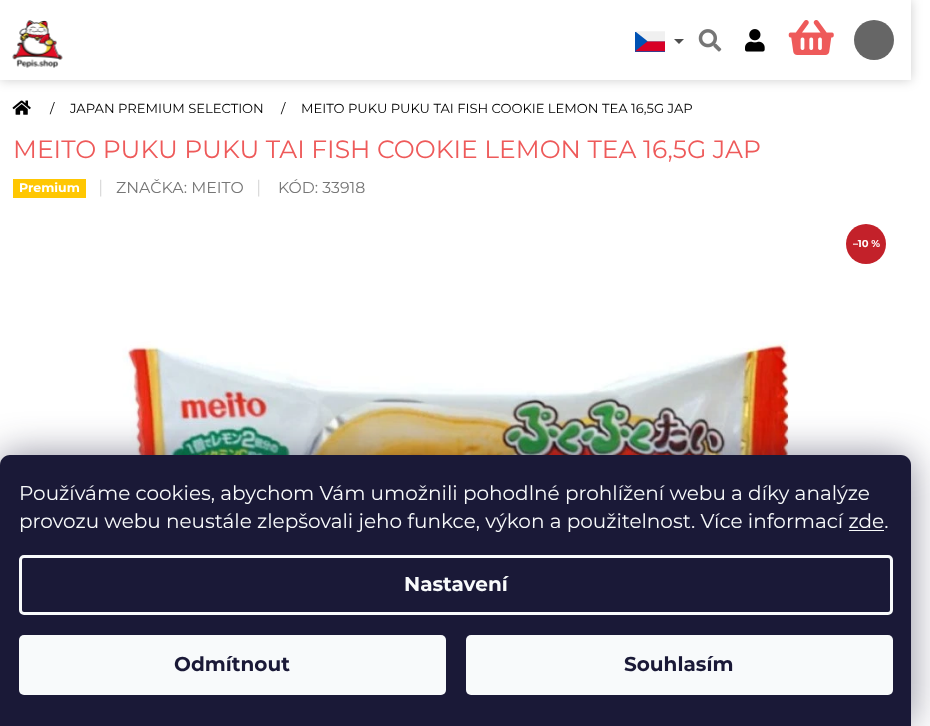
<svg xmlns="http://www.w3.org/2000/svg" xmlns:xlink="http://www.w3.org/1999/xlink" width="930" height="726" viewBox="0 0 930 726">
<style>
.cls-1{font:13.1px Montserrat;fill:#000000}
.cls-2{font:25px Montserrat;fill:#ee5a5a}
.cls-3{font:bold 12.5px Montserrat;fill:#ffffff}
.cls-4{font:18px Montserrat;fill:#dadada}
.cls-5{font:15.75px Montserrat;fill:#767676}
.cls-6{font:bold 10px Montserrat;fill:#ffffff}
.cls-7{font:20px Montserrat;fill:#f8fafb}
.cls-8{font:bold 20px Montserrat;fill:#f8fafb}
.cls-9{font:bold 20px Montserrat;fill:#1a1937}
</style>
<defs>
<clipPath id="clip1"><path d="M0 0H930V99H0ZM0 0H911V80H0Z" clip-rule="evenodd"/></clipPath>
</defs>
<rect width="100%" height="100%" fill="#ffffff"/>
<g clip-path="url(#clip1)">
<rect fill="#000000" fill-opacity="0.2" filter="blur(6px)" x="0" y="0" width="911" height="80"/>
</g>
<image xlink:href="image0.png" x="635" y="31" width="30" height="21"/>
<path fill="#4d4d4d" d="M674 39H684L679 44Z"/>
<image xlink:href="image1.png" x="698" y="29" width="24" height="23"/>
<image xlink:href="image2.png" x="745" y="29" width="20" height="23"/>
<circle fill="#666666" cx="874" cy="40" r="20"/>
<image xlink:href="image3.png" x="12" y="20" width="51" height="48"/>
<image xlink:href="image4.png" x="788" y="20" width="46" height="35"/>
<image xlink:href="image5.png" x="12" y="100" width="19" height="15"/>
<rect fill="#ffc702" x="13" y="179" width="73" height="19"/>
<circle fill="#c3212a" cx="866" cy="244" r="20"/>
<image xlink:href="image6.png" x="122" y="340" width="667" height="115"/>
<rect fill="#1b1939" fill-opacity="0.5" filter="blur(19px)" x="0" y="455" width="911" height="271" rx="10"/>
<path fill="#1a1937" d="M10 455H901C906.5 455 911 459.5 911 465V726H0V465C0 459.5 4.5 455 10 455Z"/>
<rect fill="#f8fafb" x="849" y="530" width="35" height="1"/>
<rect fill="none" stroke="#f8fafb" stroke-width="3" x="20.5" y="556.5" width="871" height="57" rx="3.5"/>
<rect fill="#f8fafb" x="19" y="635" width="427" height="60" rx="5"/>
<rect fill="#f8fafb" x="466" y="635" width="427" height="60" rx="5"/>
<text class="cls-1" x="50" y="113">/</text>
<text class="cls-1" x="70" y="113">JAPAN PREMIUM SELECTION</text>
<text class="cls-1" x="281" y="113">/</text>
<text class="cls-1" x="301" y="113">MEITO PUKU PUKU TAI FISH COOKIE LEMON TEA 16,5G JAP</text>
<text class="cls-2" x="13" y="158">MEITO PUKU PUKU TAI FISH COOKIE LEMON TEA 16,5G JAP</text>
<text class="cls-3" x="19" y="192">Premium</text>
<text class="cls-4" x="98" y="193">|</text>
<text class="cls-5" x="116" y="193">ZNAČKA: MEITO</text>
<text class="cls-4" x="256" y="193">|</text>
<text class="cls-5" x="278" y="193">KÓD: 33918</text>
<text class="cls-6" x="853" y="247">–10 %</text>
<text class="cls-7"><tspan x="19" y="500">Používáme cookies, abychom Vám umožnili pohodlné prohlížení webu a díky analýze</tspan><tspan x="19" y="528">provozu webu neustále zlepšovali jeho funkce, výkon a použitelnost. Více informací zde.</tspan></text>
<text class="cls-8" x="404" y="591">Nastavení</text>
<text class="cls-9" x="174" y="671">Odmítnout</text>
<text class="cls-9" x="624" y="671">Souhlasím</text>
</svg>
